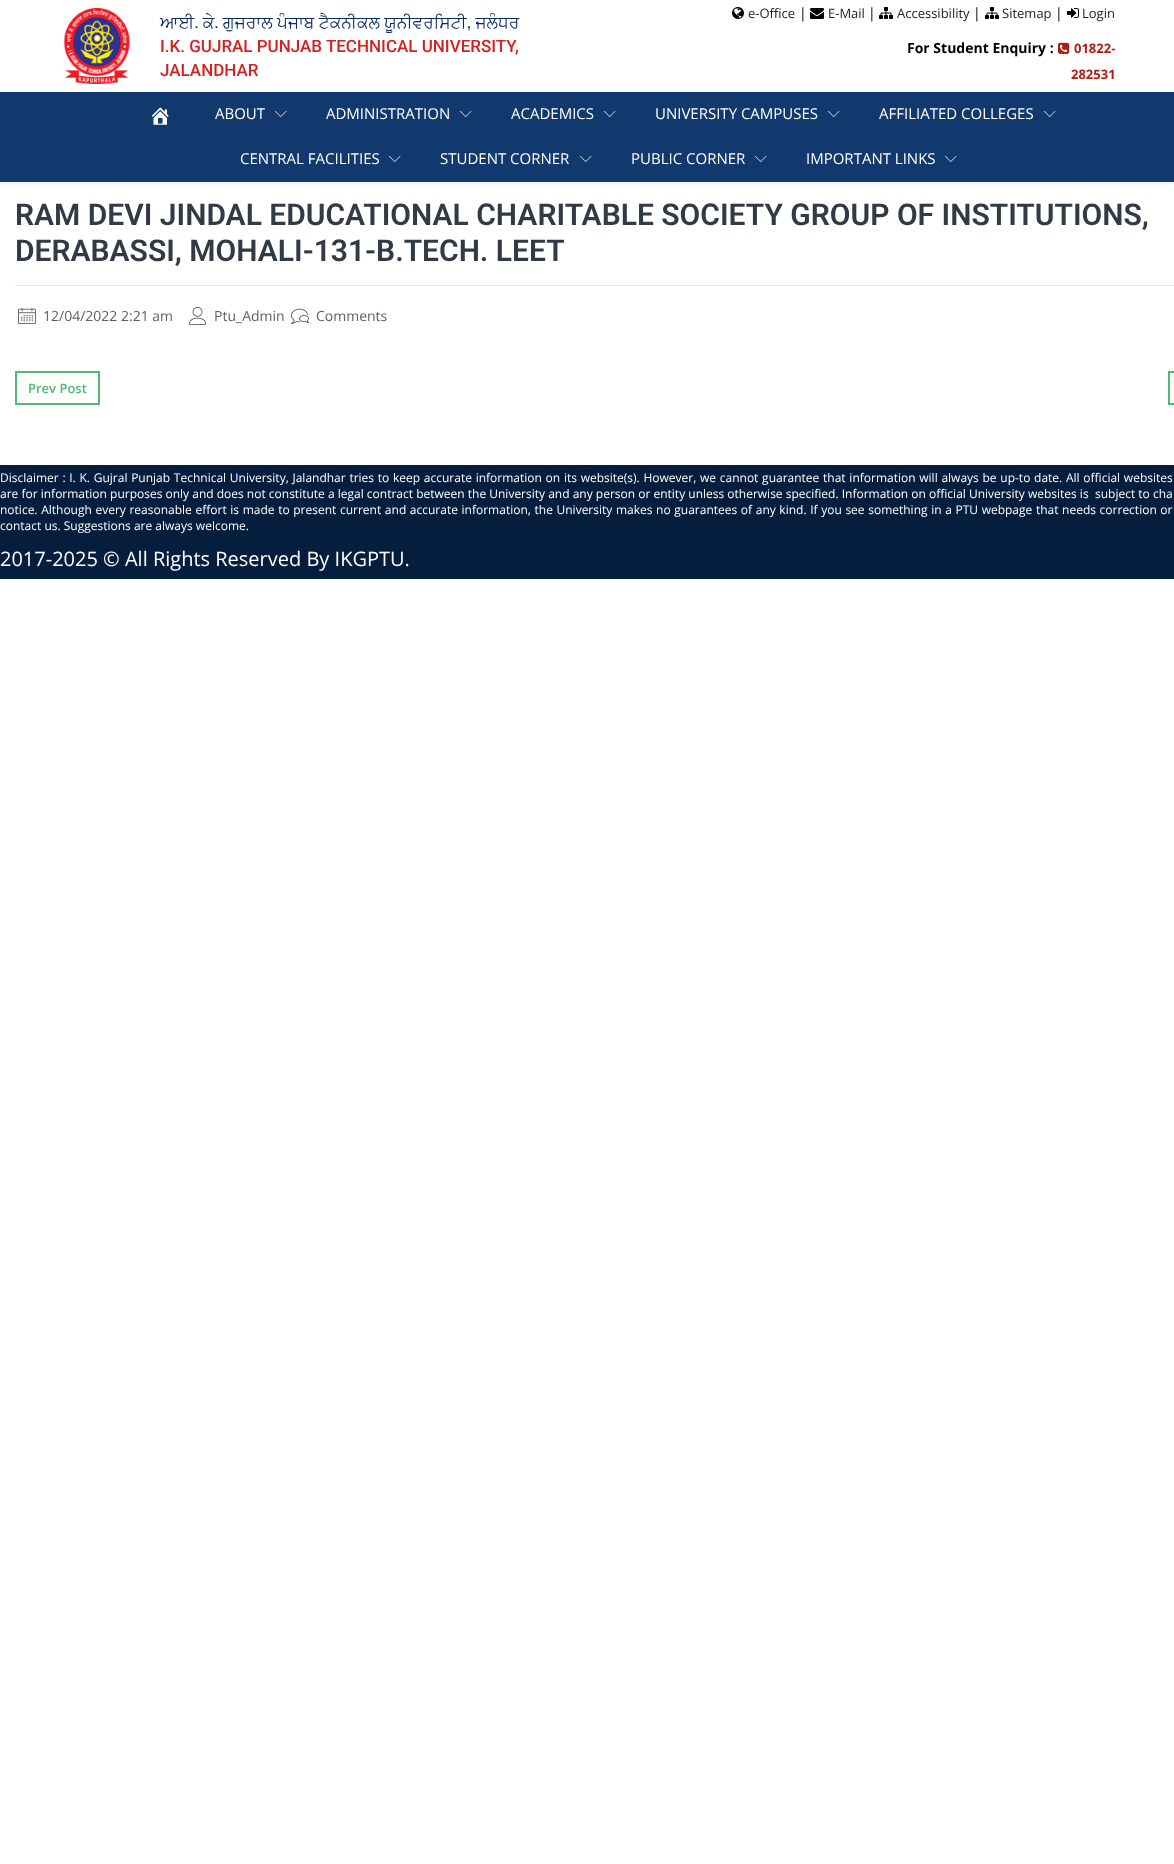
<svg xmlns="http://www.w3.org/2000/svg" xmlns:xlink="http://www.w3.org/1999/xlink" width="1174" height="1864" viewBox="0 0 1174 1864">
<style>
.cls-1{font:17px FreeSans;fill:#0b2a5e}
.cls-2{font:500 17px Roboto;fill:#d42020}
.cls-3{font:13px Open Sans;fill:#222222}
.cls-4{font:14px Open Sans;fill:#000000}
.cls-5{font:bold 14px Open Sans;fill:#000000}
.cls-6{font:bold 13px Open Sans;fill:#ac1d16}
.cls-7{font:15px Open Sans;fill:#ffffff}
.cls-8{font:600 30px Roboto;fill:#323a45}
.cls-9{font:14px Open Sans;fill:#606060}
.cls-10{font:600 13px Open Sans;fill:#53b778}
.cls-11{font:12px Open Sans;fill:#ffffff}
.cls-12{font:20px Open Sans;fill:#ffffff}
</style>
<defs>
<clipPath id="clip1"><rect x="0" y="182" width="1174" height="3"/></clipPath>
</defs>
<rect width="100%" height="100%" fill="#ffffff"/>
<g clip-path="url(#clip1)">
<rect fill="#000000" fill-opacity="0.12" filter="blur(3.5px)" x="0" y="0" width="1174" height="182"/>
</g>
<image xlink:href="image0.png" x="63" y="8" width="67" height="76"/>
<image xlink:href="image1.png" x="732" y="7" width="12" height="12"/>
<image xlink:href="image2.png" x="810" y="8" width="14" height="11"/>
<image xlink:href="image3.png" x="879" y="7" width="14" height="12"/>
<image xlink:href="image3.png" x="985" y="7" width="14" height="12"/>
<image xlink:href="image4.png" x="1067" y="8" width="12" height="10"/>
<image xlink:href="image5.png" x="1058" y="42" width="12" height="12"/>
<rect fill="#12396d" x="0" y="92" width="1174" height="90"/>
<image xlink:href="image6.png" x="151" y="107" width="18" height="18"/>
<image xlink:href="image7.png" x="275" y="110" width="12" height="7"/>
<image xlink:href="image7.png" x="460" y="110" width="12" height="7"/>
<image xlink:href="image7.png" x="604" y="110" width="12" height="7"/>
<image xlink:href="image7.png" x="828" y="110" width="12" height="7"/>
<image xlink:href="image7.png" x="1044" y="110" width="12" height="7"/>
<image xlink:href="image7.png" x="389" y="155" width="12" height="7"/>
<image xlink:href="image7.png" x="580" y="155" width="12" height="7"/>
<image xlink:href="image7.png" x="755" y="155" width="12" height="7"/>
<image xlink:href="image7.png" x="945" y="155" width="12" height="7"/>
<rect fill="#e9e9e9" x="15" y="285" width="1159" height="1"/>
<image xlink:href="image8.png" x="18" y="307" width="18" height="17"/>
<image xlink:href="image9.png" x="189" y="306" width="18" height="19"/>
<image xlink:href="image10.png" x="291" y="308" width="18" height="16"/>
<rect fill="none" stroke="#53b778" stroke-width="2" x="16" y="372" width="83" height="32"/>
<rect fill="none" stroke="#53b778" stroke-width="2" x="1169" y="372" width="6" height="32"/>
<rect fill="#061e3e" x="0" y="465" width="1174" height="114"/>
<text class="cls-1" x="160" y="28">ਆਈ. ਕੇ. ਗੁਜਰਾਲ ਪੰਜਾਬ ਟੈਕਨੀਕਲ ਯੂਨੀਵਰਸਿਟੀ, ਜਲੰਧਰ</text>
<text class="cls-2"><tspan x="160" y="52">I.K. GUJRAL PUNJAB TECHNICAL UNIVERSITY,</tspan><tspan x="160" y="76">JALANDHAR</tspan></text>
<text class="cls-3" x="748" y="18">e-Office</text>
<text class="cls-4" x="799" y="18">|</text>
<text class="cls-3" x="828" y="18">E-Mail</text>
<text class="cls-4" x="868" y="18">|</text>
<text class="cls-3" x="897" y="18">Accessibility</text>
<text class="cls-4" x="973" y="18">|</text>
<text class="cls-3" x="1002" y="18">Sitemap</text>
<text class="cls-4" x="1055" y="18">|</text>
<text class="cls-3" x="1082" y="18">Login</text>
<text class="cls-5" x="907" y="53">For Student Enquiry :</text>
<text class="cls-6" x="1074" y="53">01822-</text>
<text class="cls-6" x="1071" y="79">282531</text>
<text class="cls-7" x="215" y="119">ABOUT</text>
<text class="cls-7" x="326" y="119">ADMINISTRATION</text>
<text class="cls-7" x="511" y="119">ACADEMICS</text>
<text class="cls-7" x="655" y="119">UNIVERSITY CAMPUSES</text>
<text class="cls-7" x="879" y="119">AFFILIATED COLLEGES</text>
<text class="cls-7" x="240" y="164">CENTRAL FACILITIES</text>
<text class="cls-7" x="440" y="164">STUDENT CORNER</text>
<text class="cls-7" x="631" y="164">PUBLIC CORNER</text>
<text class="cls-7" x="806" y="164">IMPORTANT LINKS</text>
<text class="cls-8"><tspan x="15" y="225">RAM DEVI JINDAL EDUCATIONAL CHARITABLE SOCIETY GROUP OF INSTITUTIONS,</tspan><tspan x="15" y="261">DERABASSI, MOHALI-131-B.TECH. LEET</tspan></text>
<text class="cls-9" x="43" y="321">12/04/2022 2:21 am</text>
<text class="cls-9" x="214" y="321">Ptu_Admin</text>
<text class="cls-9" x="316" y="321">Comments</text>
<text class="cls-10" x="28" y="393">Prev Post</text>
<text class="cls-11"><tspan x="0" y="482" word-spacing="0.6">Disclaimer : I. K. Gujral Punjab Technical University, Jalandhar tries to keep accurate information on its website(s). However, we cannot guarantee that information will always be up-to date. All official websites</tspan><tspan x="0" y="498">are for information purposes only and does not constitute a legal contract between the University and any person or entity unless otherwise specified. Information on official University websites is</tspan></text>
<text class="cls-11" x="1095" y="498">subject to cha</text>
<text class="cls-11"><tspan x="0" y="514" word-spacing="0.5">notice. Although every reasonable effort is made to present current and accurate information, the University makes no guarantees of any kind. If you see something in a PTU webpage that needs correction or</tspan><tspan x="0" y="530">contact us. Suggestions are always welcome.</tspan></text>
<text class="cls-12" x="0" y="566">2017-2025 © All Rights Reserved By IKGPTU.</text>
</svg>
